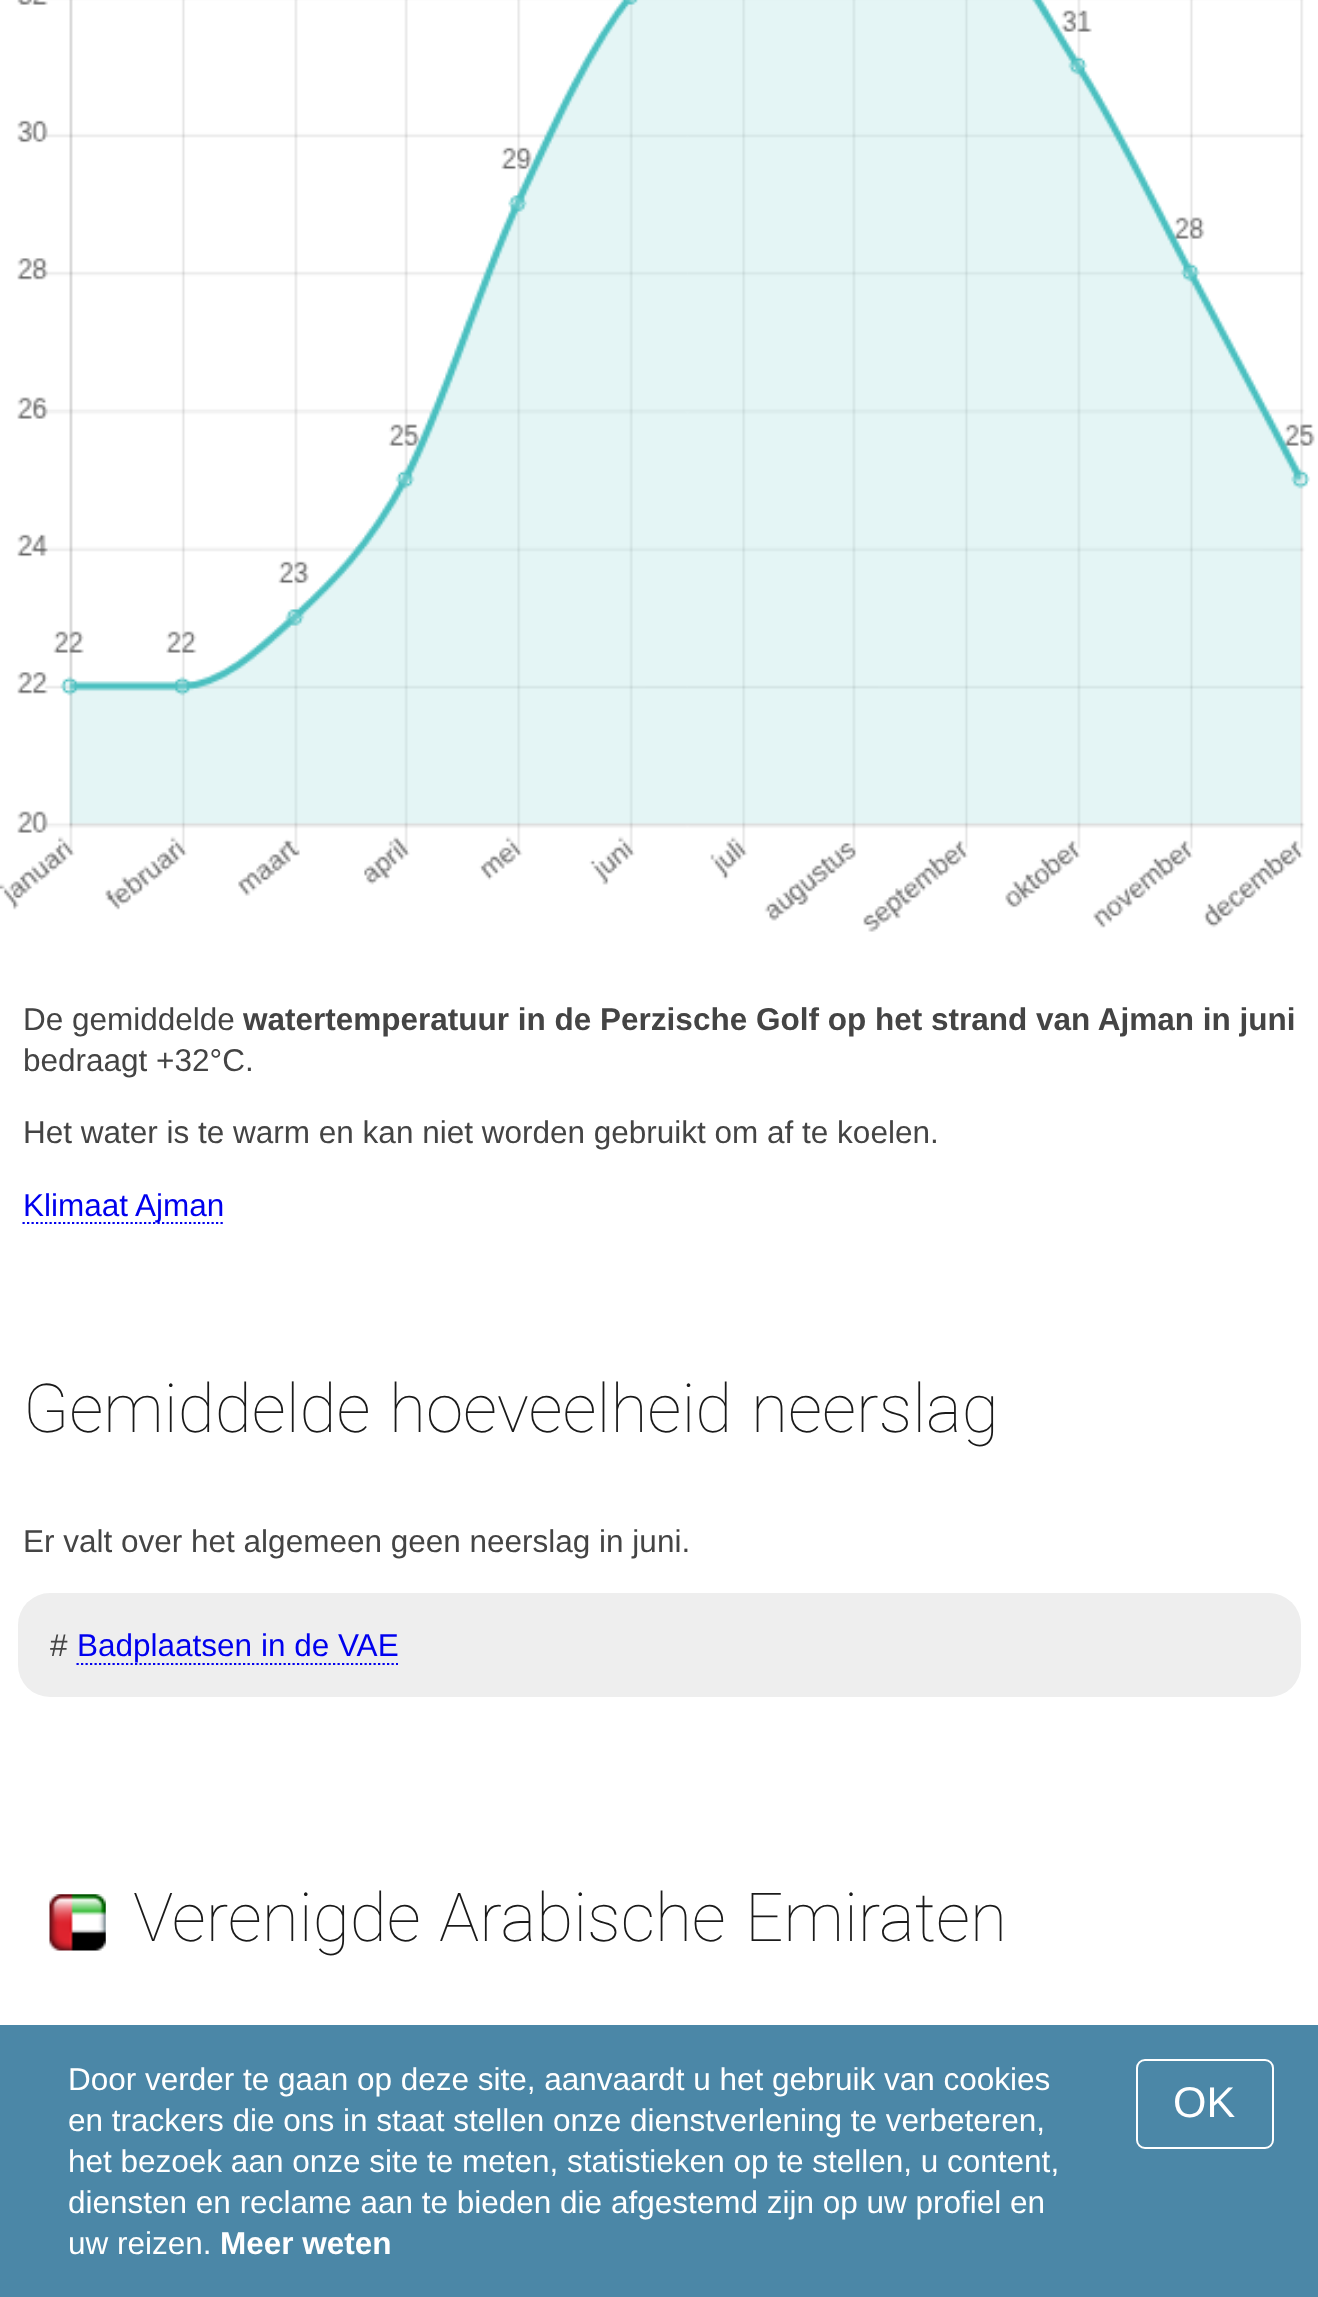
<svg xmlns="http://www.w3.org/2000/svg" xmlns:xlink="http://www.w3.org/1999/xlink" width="1318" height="2297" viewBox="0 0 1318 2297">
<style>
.cls-1{font:31.5px Liberation Sans;fill:#444444}
.cls-2{font:bold 31.5px Liberation Sans;fill:#444444}
.cls-3{font:31.5px Liberation Sans;fill:#0000ee}
.cls-4{font:100 67.5px Roboto;fill:#1a1a1a}
.cls-5{font:31.5px Liberation Sans;fill:#ffffff}
.cls-6{font:bold 31.5px Liberation Sans;fill:#ffffff}
.cls-7{font:43px Liberation Sans;fill:#ffffff}
</style>
<rect width="100%" height="100%" fill="#ffffff"/>
<image xlink:href="image0.png" x="0" y="0" width="1315" height="932"/>
<path fill="none" stroke="#0000ee" stroke-width="2.2" stroke-dasharray="2.25 2.25" d="M22.5 1223H223"/>
<rect fill="#eeeeee" x="18" y="1593" width="1283" height="104" rx="32"/>
<path fill="none" stroke="#0000ee" stroke-width="2.2" stroke-dasharray="2.25 2.25" d="M76.5 1664H398"/>
<image xlink:href="image1.png" x="49" y="1894" width="57" height="57"/>
<rect fill="#4b87a7" x="0" y="2025" width="1318" height="272"/>
<rect fill="none" stroke="#ffffff" stroke-width="2" x="1137" y="2060" width="136" height="88" rx="8"/>
<text class="cls-1" x="23" y="1030">De gemiddelde</text>
<text class="cls-2" x="243" y="1030">watertemperatuur in de Perzische Golf op het strand van Ajman in juni</text>
<text class="cls-1" x="23" y="1071">bedraagt +32°C.</text>
<text class="cls-1" x="23" y="1143">Het water is te warm en kan niet worden gebruikt om af te koelen.</text>
<text class="cls-3" x="23" y="1216">Klimaat Ajman</text>
<text class="cls-4" x="23" y="1432">Gemiddelde</text>
<text class="cls-4" x="389" y="1432">hoeveelheid</text>
<text class="cls-4" x="751" y="1432">neerslag</text>
<text class="cls-1" x="23" y="1552">Er valt over het algemeen geen neerslag in juni.</text>
<text class="cls-1" x="50" y="1656">#</text>
<text class="cls-3" x="77" y="1656">Badplaatsen in de VAE</text>
<text class="cls-4" x="133" y="1941">Verenigde</text>
<text class="cls-4" x="439" y="1941">Arabische</text>
<text class="cls-4" x="745" y="1941">Emiraten</text>
<text class="cls-5"><tspan x="68" y="2090">Door verder te gaan op deze site, aanvaardt u het gebruik van cookies</tspan><tspan x="68" y="2131">en trackers die ons in staat stellen onze dienstverlening te verbeteren,</tspan><tspan x="68" y="2172">het bezoek aan onze site te meten, statistieken op te stellen, u content,</tspan><tspan x="68" y="2213">diensten en reclame aan te bieden die afgestemd zijn op uw profiel en</tspan><tspan x="68" y="2254">uw reizen.</tspan></text>
<text class="cls-6" x="220" y="2254">Meer weten</text>
<text class="cls-7" x="1173" y="2117">OK</text>
</svg>
